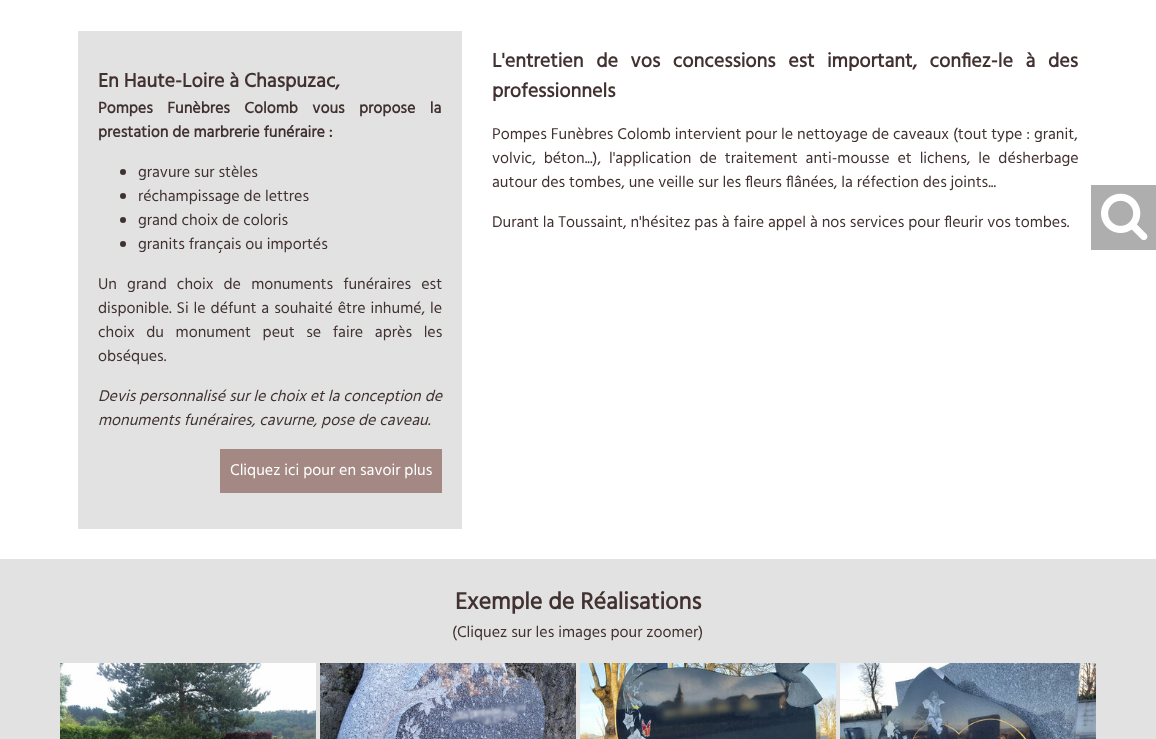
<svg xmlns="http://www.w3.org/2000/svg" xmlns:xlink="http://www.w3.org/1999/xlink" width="1156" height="739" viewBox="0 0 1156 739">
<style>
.cls-1{font:bold 20px Hind;fill:#413130}
.cls-2{font:bold 16px Hind;fill:#413130}
.cls-3{font:16px Hind;fill:#413130}
.cls-4{font:italic 16px Hind;fill:#413130}
.cls-5{font:16px Hind;fill:#ffffff}
.cls-6{font:bold 24px Hind;fill:#413130}
</style>
<rect width="100%" height="100%" fill="#ffffff"/>
<rect fill="#e2e2e2" x="78" y="31" width="384" height="498"/>
<circle fill="#413130" cx="123" cy="172" r="3"/>
<circle fill="#413130" cx="123" cy="196" r="3"/>
<circle fill="#413130" cx="123" cy="220" r="3"/>
<circle fill="#413130" cx="123" cy="244" r="3"/>
<rect fill="#a38883" x="220" y="449" width="222" height="44"/>
<rect fill="#e2e2e2" x="0" y="559" width="1156" height="180"/>
<image xlink:href="image0.png" x="60" y="663" width="256" height="76"/>
<image xlink:href="image1.png" x="320" y="663" width="256" height="76"/>
<image xlink:href="image2.png" x="580" y="663" width="256" height="76"/>
<image xlink:href="image3.png" x="840" y="663" width="256" height="76"/>
<rect fill="#aeaeae" x="1091" y="185" width="65" height="65"/>
<image xlink:href="image4.png" x="1101" y="193" width="47" height="48"/>
<text class="cls-1" x="98" y="87">En Haute-Loire à Chaspuzac,</text>
<text class="cls-2"><tspan x="98" y="113" word-spacing="10.5">Pompes Funèbres Colomb vous propose la</tspan><tspan x="98" y="137">prestation de marbrerie funéraire :</tspan></text>
<text class="cls-3"><tspan x="138" y="177">gravure sur stèles</tspan><tspan x="138" y="201">réchampissage de lettres</tspan><tspan x="138" y="225">grand choix de coloris</tspan><tspan x="138" y="249">granits français ou importés</tspan></text>
<text class="cls-3"><tspan x="98" y="289" word-spacing="6.25">Un grand choix de monuments funéraires est</tspan><tspan x="98" y="313" word-spacing="1">disponible. Si le défunt a souhaité être inhumé, le</tspan><tspan x="98" y="337" word-spacing="7.75">choix du monument peut se faire après les</tspan><tspan x="98" y="361">obséques.</tspan></text>
<text class="cls-4"><tspan x="98" y="401">Devis personnalisé sur le choix et la conception de</tspan><tspan x="98" y="425">monuments funéraires, cavurne, pose de caveau.</tspan></text>
<text class="cls-5" x="230" y="475">Cliquez ici pour en savoir plus</text>
<text class="cls-1"><tspan x="492" y="67" word-spacing="7.75">L'entretien de vos concessions est important, confiez-le à des</tspan><tspan x="492" y="97">professionnels</tspan></text>
<text class="cls-3"><tspan x="492" y="139">Pompes Funèbres Colomb intervient pour le nettoyage de caveaux (tout type : granit,</tspan><tspan x="492" y="163" word-spacing="4">volvic, béton...), l'application de traitement anti-mousse et lichens, le désherbage</tspan><tspan x="492" y="187">autour des tombes, une veille sur les fleurs flânées, la réfection des joints...</tspan></text>
<text class="cls-3" x="492" y="227">Durant la Toussaint, n'hésitez pas à faire appel à nos services pour fleurir vos tombes.</text>
<text class="cls-6" x="455" y="609">Exemple de Réalisations</text>
<text class="cls-3" x="452" y="637">(Cliquez sur les images pour zoomer)</text>
</svg>
